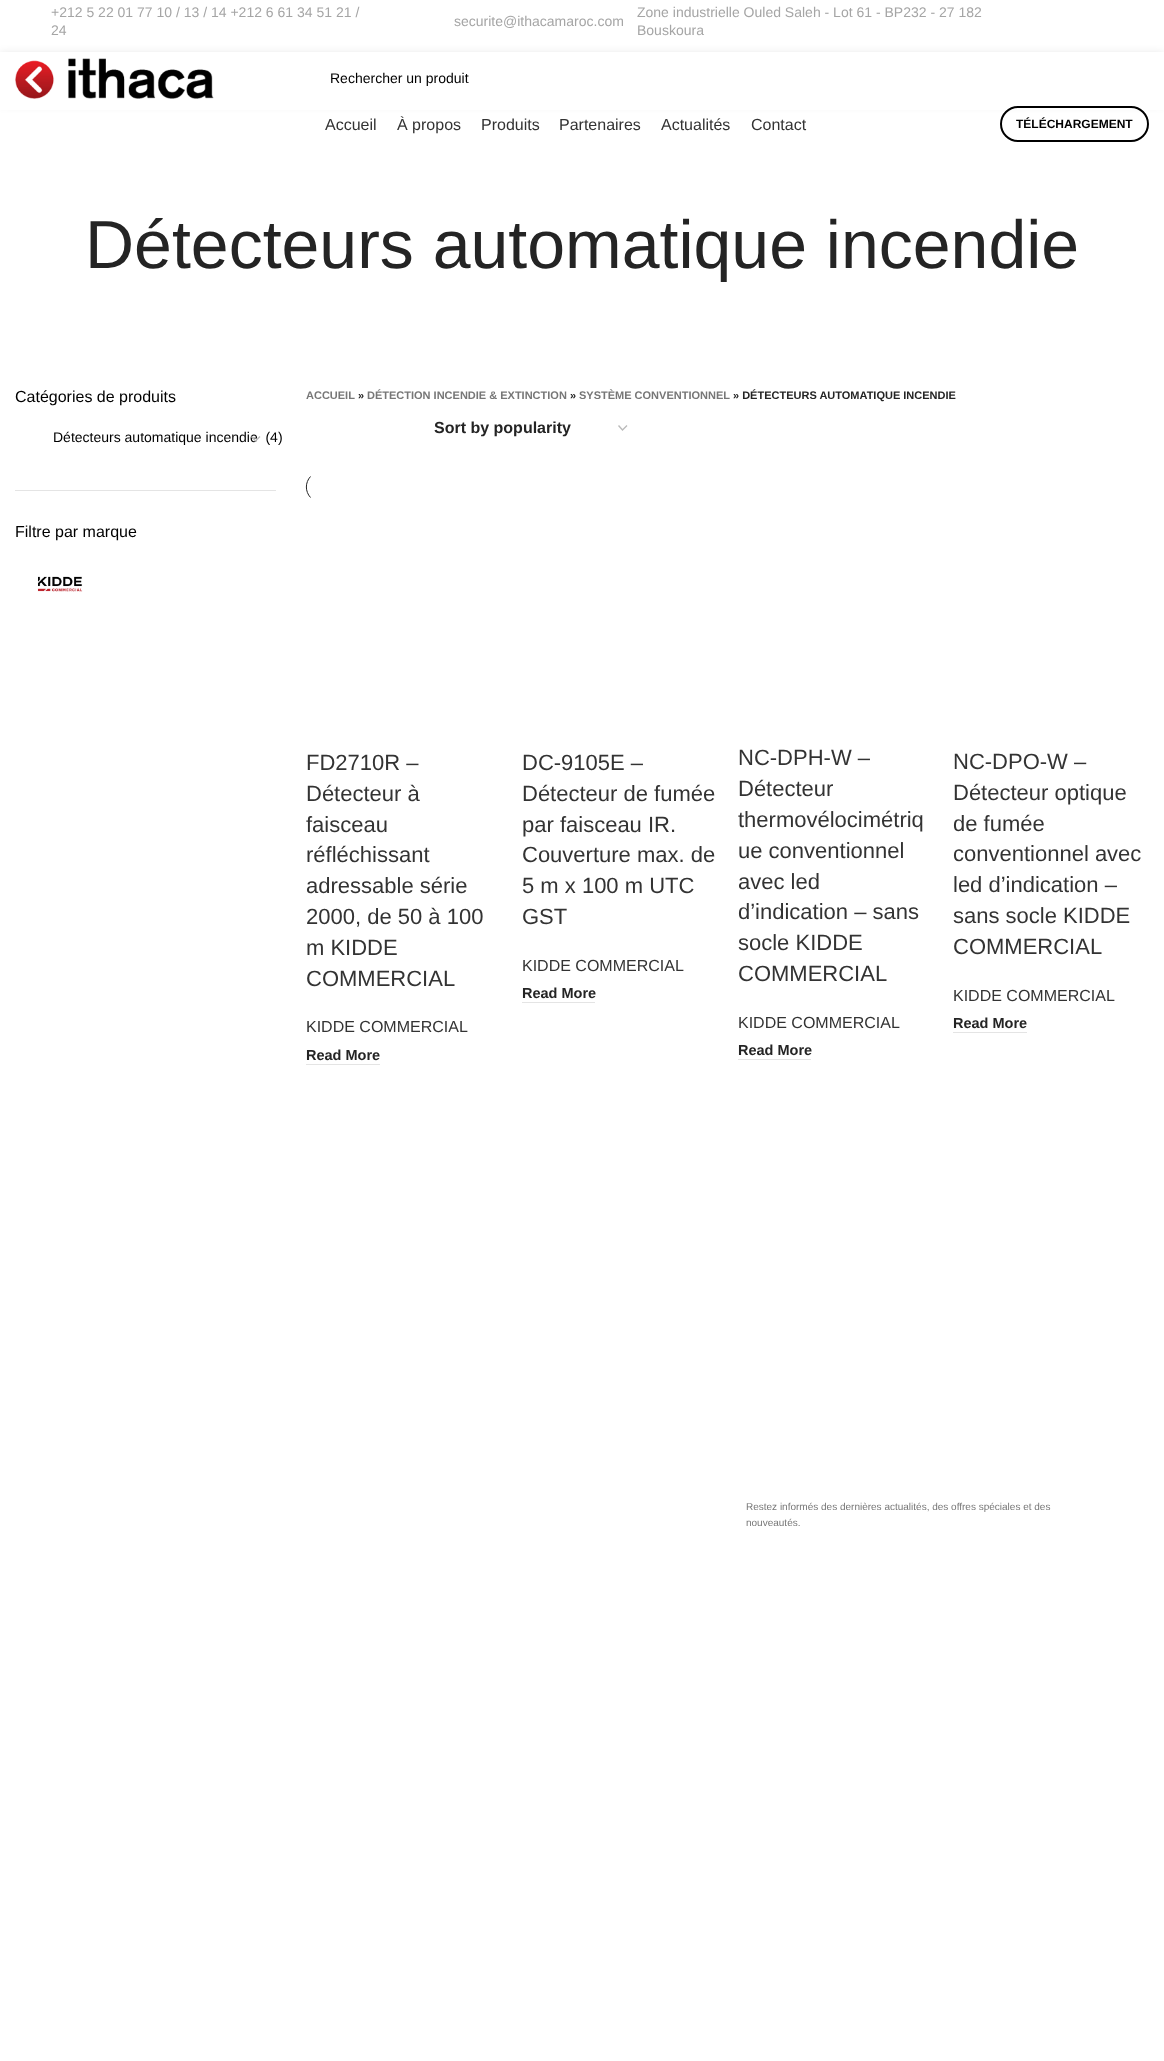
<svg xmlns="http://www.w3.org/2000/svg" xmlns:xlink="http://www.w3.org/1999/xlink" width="1164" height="2061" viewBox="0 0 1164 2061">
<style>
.cls-1{font:14px Liberation Sans;fill:#a5a5a5}
.cls-2{font:14px Liberation Sans;fill:#000000}
.cls-3{font:16px Liberation Sans;fill:#333333}
.cls-4{font:bold 12px Liberation Sans;fill:#000000}
.cls-5{font:68px Liberation Sans;fill:#242424}
.cls-6{font:16px Liberation Sans;fill:#000000}
.cls-7{font:bold 11px Liberation Sans;fill:#777777}
.cls-8{font:bold 11px Liberation Sans;fill:#242424}
.cls-9{font:bold 16px Liberation Sans;fill:#242424}
.cls-10{font:22px Liberation Sans;fill:#333333}
.cls-11{font:bold 14.5px Liberation Sans;fill:#242424}
.cls-12{font:10px Liberation Sans;fill:#777777}
</style>
<rect width="100%" height="100%" fill="#ffffff"/>
<rect fill="#000000" fill-opacity="0.1" filter="blur(4px)" x="0" y="53" width="1164" height="52"/>
<rect fill="#ffffff" x="0" y="52" width="1164" height="58"/>
<image xlink:href="image0.png" x="15" y="58" width="199" height="41"/>
<rect fill="none" stroke="#000000" stroke-width="2" x="1001" y="107" width="147" height="34" rx="17"/>
<rect fill="#e4e4e4" x="15" y="490" width="261" height="1"/>
<image xlink:href="image1.png" x="37" y="576" width="46" height="16"/>
<path fill="none" stroke="#bbbbbb" stroke-width="1.4" d="M618.5 425.5L622.5 430L627 425.5"/>
<path fill="none" stroke="#242424" d="M310.5 497.5C305 491.5 305 482.5 310.5 476.5"/>
<rect fill="#e4e4e4" x="306" y="1064" width="74" height="1"/>
<rect fill="#e4e4e4" x="522" y="1002" width="73" height="1"/>
<rect fill="#e4e4e4" x="738" y="1059" width="73" height="1"/>
<rect fill="#e4e4e4" x="953" y="1032" width="74" height="1"/>
<text class="cls-1"><tspan x="51" y="17">+212 5 22 01 77 10 / 13 / 14 +212 6 61 34 51 21 /</tspan><tspan x="51" y="35">24</tspan></text>
<text class="cls-1" x="454" y="26">securite@ithacamaroc.com</text>
<text class="cls-1"><tspan x="637" y="17">Zone industrielle Ouled Saleh - Lot 61 - BP232 - 27 182</tspan><tspan x="637" y="35">Bouskoura</tspan></text>
<text class="cls-2" x="330" y="83">Rechercher un produit</text>
<text class="cls-3" x="325" y="130">Accueil</text>
<text class="cls-3" x="397" y="130">À propos</text>
<text class="cls-3" x="481" y="130">Produits</text>
<text class="cls-3" x="559" y="130">Partenaires</text>
<text class="cls-3" x="661" y="130">Actualités</text>
<text class="cls-3" x="751" y="130">Contact</text>
<text class="cls-4" x="1016" y="128">TÉLÉCHARGEMENT</text>
<text class="cls-5" x="85" y="268">Détecteurs automatique incendie</text>
<text class="cls-6" x="15" y="402">Catégories de produits</text>
<text class="cls-2" xml:space="preserve" x="53" y="442">Détecteurs automatique incendie  (4)</text>
<path fill="none" stroke="#bbbbbb" stroke-width="1.4" d="M251.5 436.5L255.5 441L260 436.5"/>
<text class="cls-6" x="15" y="537">Filtre par marque</text>
<text class="cls-7" x="306" y="399">ACCUEIL</text>
<text class="cls-8" x="358" y="399">»</text>
<text class="cls-7" x="367" y="399">DÉTECTION INCENDIE &amp; EXTINCTION</text>
<text class="cls-8" x="570" y="399">»</text>
<text class="cls-7" x="579" y="399">SYSTÈME CONVENTIONNEL</text>
<text class="cls-8" x="733" y="399">» DÉTECTEURS AUTOMATIQUE INCENDIE</text>
<text class="cls-9" x="434" y="433">Sort by popularity</text>
<text class="cls-10"><tspan x="306" y="770">FD2710R –</tspan><tspan x="306" y="801">Détecteur à</tspan><tspan x="306" y="832">faisceau</tspan><tspan x="306" y="862">réfléchissant</tspan><tspan x="306" y="893">adressable série</tspan><tspan x="306" y="924">2000, de 50 à 100</tspan><tspan x="306" y="955">m KIDDE</tspan><tspan x="306" y="986">COMMERCIAL</tspan></text>
<text class="cls-3" x="306" y="1032">KIDDE COMMERCIAL</text>
<text class="cls-11" x="306" y="1060">Read More</text>
<text class="cls-10"><tspan x="522" y="770">DC-9105E –</tspan><tspan x="522" y="801">Détecteur de fumée</tspan><tspan x="522" y="832">par faisceau IR.</tspan><tspan x="522" y="862">Couverture max. de</tspan><tspan x="522" y="893">5 m x 100 m UTC</tspan><tspan x="522" y="924">GST</tspan></text>
<text class="cls-3" x="522" y="971">KIDDE COMMERCIAL</text>
<text class="cls-11" x="522" y="998">Read More</text>
<text class="cls-10"><tspan x="738" y="765">NC-DPH-W –</tspan><tspan x="738" y="796">Détecteur</tspan><tspan x="738" y="827">thermovélocimétriq</tspan><tspan x="738" y="858">ue conventionnel</tspan><tspan x="738" y="889">avec led</tspan><tspan x="738" y="919">d’indication – sans</tspan><tspan x="738" y="950">socle KIDDE</tspan><tspan x="738" y="981">COMMERCIAL</tspan></text>
<text class="cls-3" x="738" y="1028">KIDDE COMMERCIAL</text>
<text class="cls-11" x="738" y="1055">Read More</text>
<text class="cls-10"><tspan x="953" y="769">NC-DPO-W –</tspan><tspan x="953" y="800">Détecteur optique</tspan><tspan x="953" y="831">de fumée</tspan><tspan x="953" y="861">conventionnel avec</tspan><tspan x="953" y="892">led d’indication –</tspan><tspan x="953" y="923">sans socle KIDDE</tspan><tspan x="953" y="954">COMMERCIAL</tspan></text>
<text class="cls-3" x="953" y="1001">KIDDE COMMERCIAL</text>
<text class="cls-11" x="953" y="1028">Read More</text>
<text class="cls-12"><tspan x="746" y="1510">Restez informés des dernières actualités, des offres spéciales et des</tspan><tspan x="746" y="1526">nouveautés.</tspan></text>
</svg>
